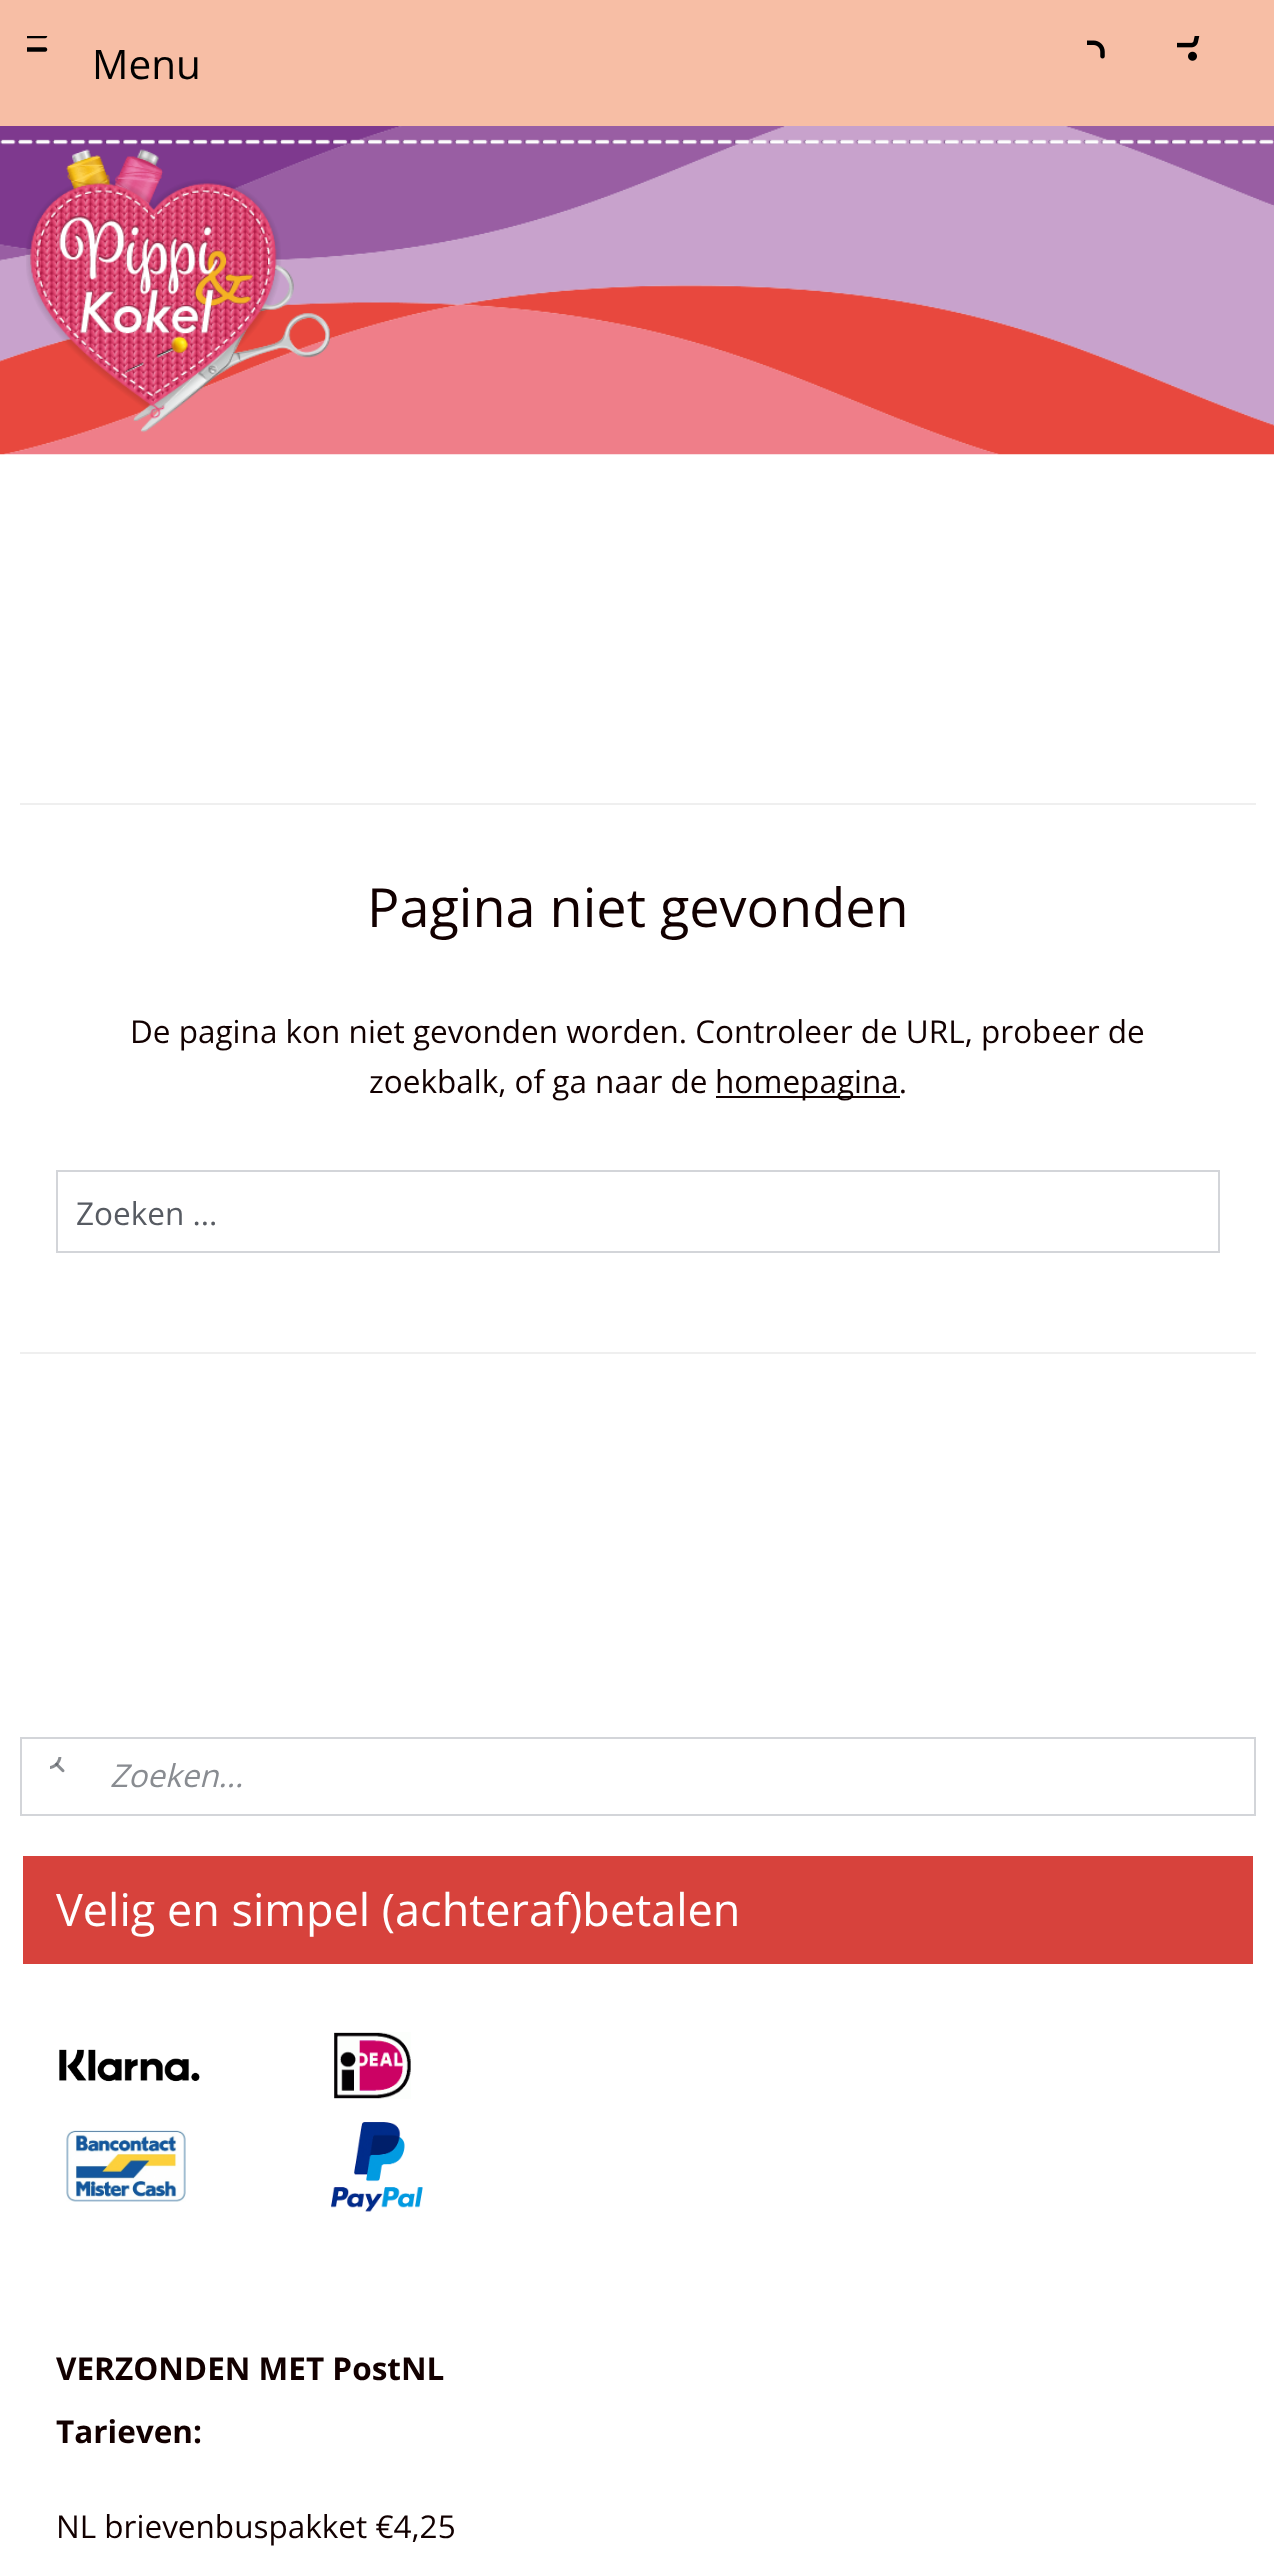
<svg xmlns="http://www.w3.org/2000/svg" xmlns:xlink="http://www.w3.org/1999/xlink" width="1274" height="2555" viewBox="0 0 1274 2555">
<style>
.cls-1{font:40.5px Open Sans;fill:#000000}
.cls-2{font:54px Open Sans;fill:#120000}
.cls-3{font:31.5px Open Sans;fill:#120000}
.cls-4{font:31.5px Open Sans;fill:#575b62}
.cls-5{font:italic 31.5px Open Sans;fill:#898c91}
.cls-6{font:45px Open Sans;fill:#ffffff}
.cls-7{font:bold 31.5px Open Sans;fill:#120000}
</style>
<rect width="100%" height="100%" fill="#ffffff"/>
<rect fill="#f7bea5" x="0" y="0" width="1274" height="126"/>
<image xlink:href="image0.png" x="27" y="36" width="21" height="16"/>
<image xlink:href="image1.png" x="1087" y="40" width="18" height="19"/>
<image xlink:href="image2.png" x="1177" y="36" width="23" height="25"/>
<image xlink:href="image3.png" x="0" y="126" width="1274" height="329"/>
<image xlink:href="image4.png" x="26" y="149" width="304" height="284"/>
<rect fill="#efefef" x="20" y="803" width="1236" height="2"/>
<rect fill="#efefef" x="20" y="1352" width="1236" height="2"/>
<rect fill="#120000" x="716" y="1096" width="184" height="2"/>
<rect fill="none" stroke="#d3d5d9" stroke-width="2" x="57" y="1171" width="1162" height="81"/>
<rect fill="none" stroke="#d3d5d9" stroke-width="2" x="21" y="1738" width="1234" height="77"/>
<image xlink:href="image5.png" x="50" y="1757" width="15" height="16"/>
<rect fill="#d7423c" x="23" y="1856" width="1230" height="108"/>
<image xlink:href="image6.png" x="59" y="2049" width="141" height="33"/>
<image xlink:href="image7.png" x="334" y="2032" width="77" height="67"/>
<image xlink:href="image8.png" x="66" y="2130" width="120" height="72"/>
<image xlink:href="image9.png" x="331" y="2122" width="92" height="90"/>
<text class="cls-1" x="92" y="79">Menu</text>
<text class="cls-2" x="367" y="927">Pagina niet gevonden</text>
<text class="cls-3" x="130" y="1043">De pagina kon niet gevonden worden. Controleer de URL, probeer de</text>
<text class="cls-3" x="369" y="1093">zoekbalk, of ga naar de</text>
<text class="cls-3" x="715" y="1093">homepagina.</text>
<text class="cls-4" x="76" y="1225">Zoeken ...</text>
<text class="cls-5" x="110" y="1787">Zoeken...</text>
<text class="cls-6" x="56" y="1926">Velig en simpel (achteraf)betalen</text>
<text class="cls-7" x="56" y="2380">VERZONDEN MET PostNL</text>
<text class="cls-7" x="56" y="2443">Tarieven:</text>
<text class="cls-3" x="56" y="2538">NL brievenbuspakket €4,25</text>
</svg>
